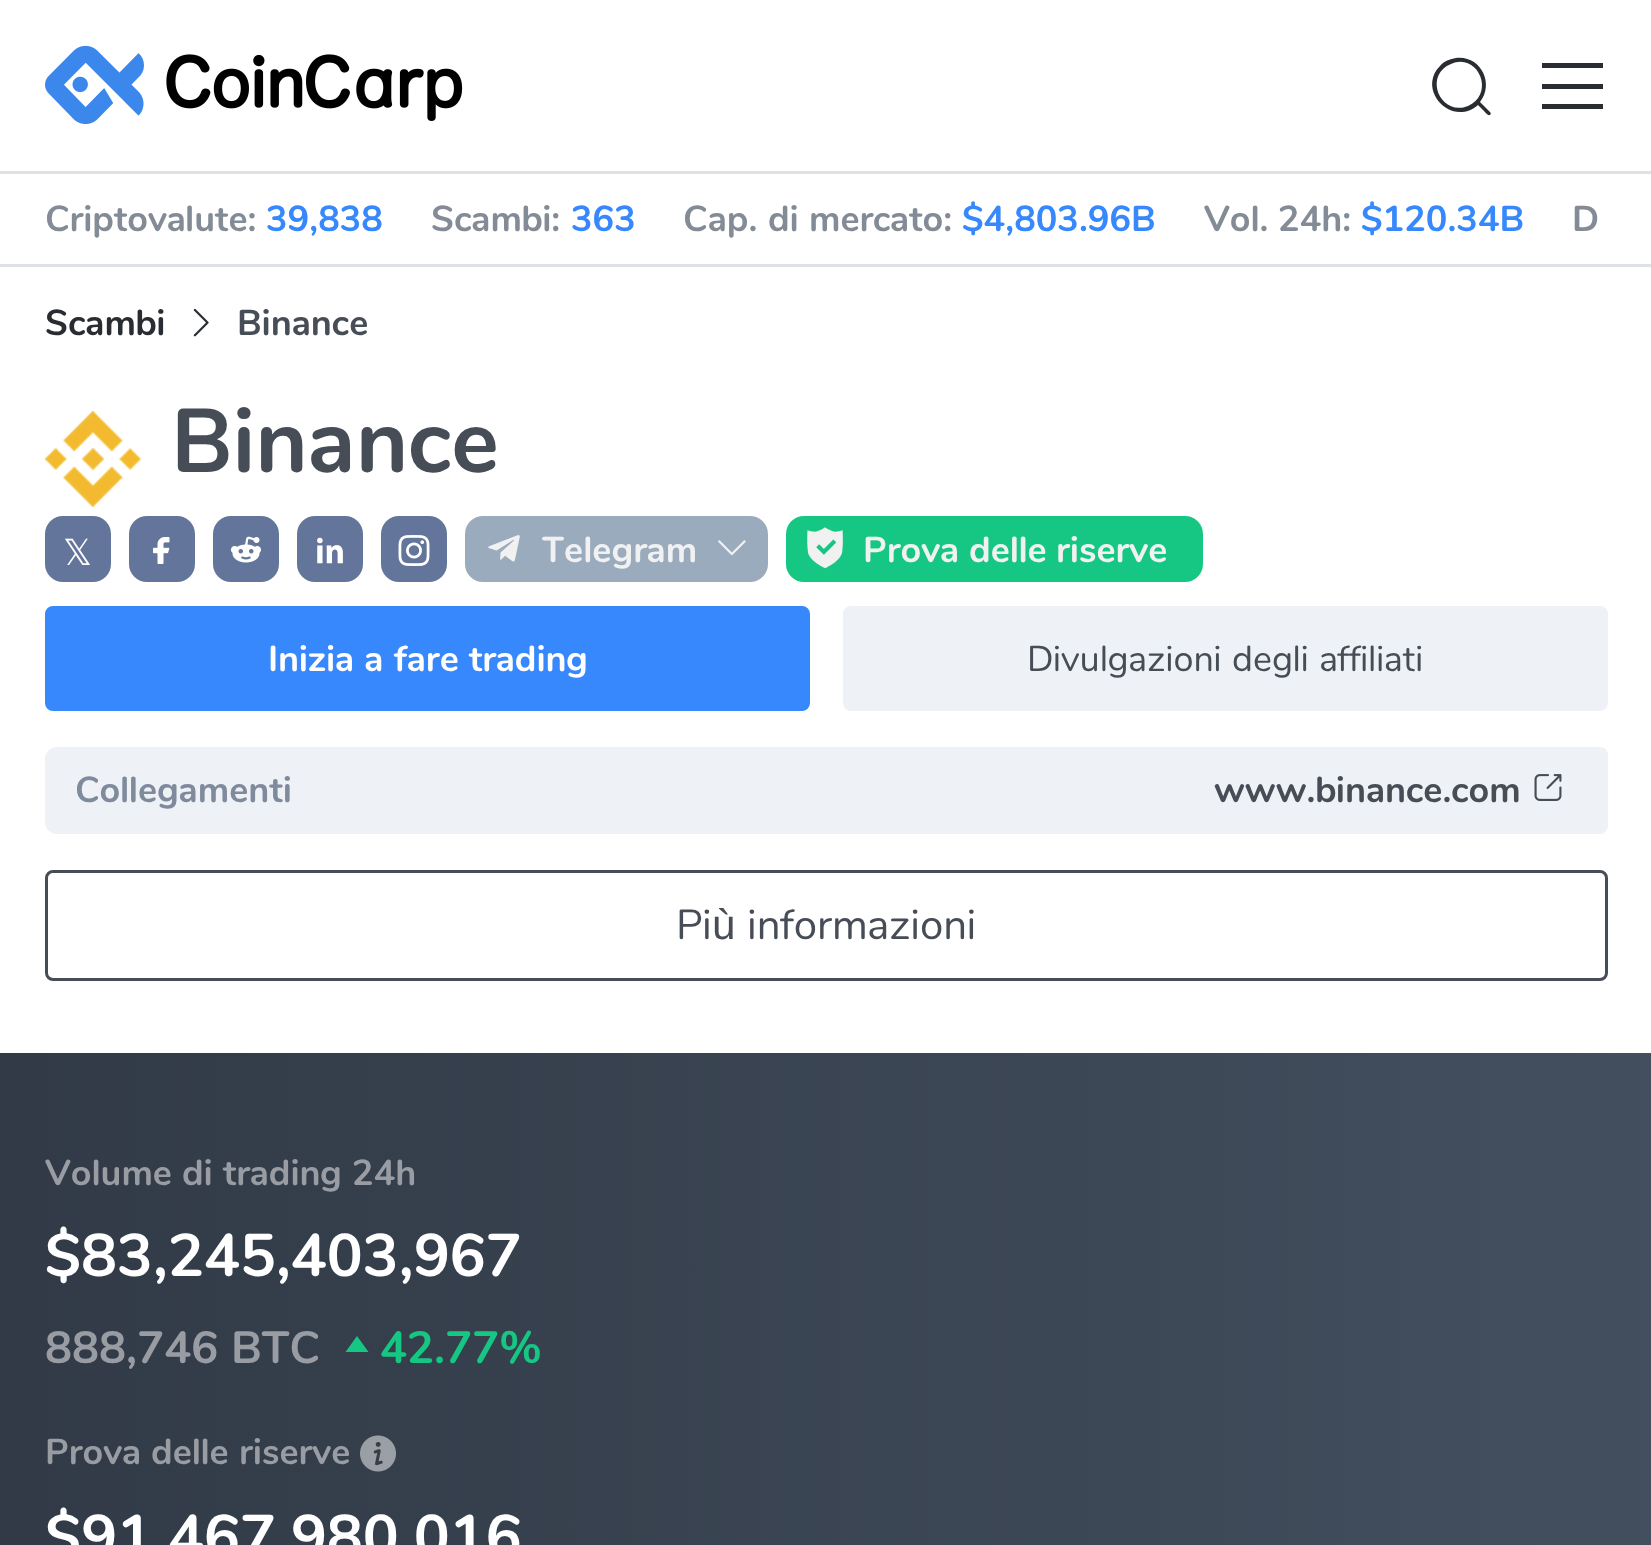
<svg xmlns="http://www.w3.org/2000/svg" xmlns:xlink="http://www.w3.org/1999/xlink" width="1651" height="1545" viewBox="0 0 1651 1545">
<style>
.cls-1{font:bold 36px Nunito;fill:#838c96}
.cls-2{font:bold 36px Nunito;fill:#3688fc}
.cls-3{font:bold 36px Nunito;fill:#292d32}
.cls-4{font:bold 36px Nunito;fill:#474d56}
.cls-5{font:bold 90px Nunito;fill:#474d56}
.cls-6{font:36px DejaVu Sans;fill:#ffffff}
.cls-7{font:bold 36px Nunito;fill:#f1f1f1}
.cls-8{font:bold 36px Nunito;fill:#ffffff}
.cls-9{font:36px Nunito;fill:#474d56}
.cls-10{font:bold 36px Nunito;fill:#808a9d}
.cls-11{font:42px Nunito;fill:#474d56}
.cls-12{font:42px Liberation Sans;fill:#474d56}
.cls-13{font:bold 36px Nunito;fill:#999da3}
.cls-14{font:bold 60px Nunito;fill:#ffffff}
.cls-15{font:bold 45px Nunito;fill:#999da3}
.cls-16{font:bold 45px Nunito;fill:#16c784}
</style>
<defs>
<linearGradient id="g1" gradientUnits="userSpaceOnUse" x1="0" y1="1443" x2="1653" y2="1443"><stop offset="0" stop-color="#313a46"/><stop offset="1" stop-color="#434f5f"/></linearGradient>
</defs>
<rect width="100%" height="100%" fill="#ffffff"/>
<rect fill="#dee2e6" x="0" y="171" width="1651" height="3"/>
<image xlink:href="image0.png" x="45" y="45" width="418" height="80"/>
<path fill="#292d32" d="M1490 112L1480 102C1495 83 1480 55 1456 58C1450 59 1444 61 1440 66C1416 90 1452 128 1478 105L1484 111C1485 112 1488 116 1490 115C1491 114 1491 113 1490 112ZM1468 106C1440 117 1423 75 1451 64C1478 52 1496 94 1468 106Z"/>
<path fill="#292d32" d="M1542 63H1603V68H1542ZM1542 84H1603V89H1542ZM1542 104H1603V109H1542Z"/>
<rect fill="#dee2e6" x="0" y="264" width="1651" height="3"/>
<image xlink:href="image1.png" x="193" y="308" width="16" height="29"/>
<image xlink:href="image2.png" x="45" y="411" width="96" height="96"/>
<rect fill="#64759b" x="45" y="516" width="66" height="66" rx="18"/>
<rect fill="#64759b" x="129" y="516" width="66" height="66" rx="18"/>
<image xlink:href="image3.png" x="153" y="537" width="17" height="27"/>
<rect fill="#64759b" x="213" y="516" width="66" height="66" rx="18"/>
<image xlink:href="image4.png" x="230" y="536" width="31" height="27"/>
<rect fill="#64759b" x="297" y="516" width="66" height="66" rx="18"/>
<image xlink:href="image5.png" x="317" y="537" width="26" height="27"/>
<rect fill="#64759b" x="381" y="516" width="66" height="66" rx="18"/>
<image xlink:href="image6.png" x="398" y="535" width="32" height="31"/>
<rect fill="#9babbe" x="465" y="516" width="303" height="66" rx="18"/>
<image xlink:href="image7.png" x="488" y="535" width="32" height="27"/>
<image xlink:href="image8.png" x="718" y="540" width="28" height="16"/>
<rect fill="#16c784" x="786" y="516" width="417" height="66" rx="18"/>
<image xlink:href="image9.png" x="807" y="527" width="36" height="42"/>
<rect fill="#3688fc" stroke="#3688fc" stroke-width="3" x="46.5" y="607.5" width="762" height="102" rx="6.5"/>
<rect fill="#eef2f7" stroke="#eef2f7" stroke-width="3" x="844.5" y="607.5" width="762" height="102" rx="6.5"/>
<rect fill="#eef2f7" x="45" y="747" width="1563" height="87" rx="12"/>
<rect fill="#eef2f7" stroke="#eef2f7" stroke-width="3" x="1174.5" y="748.5" width="432" height="84" rx="6.5"/>
<image xlink:href="image10.png" x="1534" y="774" width="28" height="27"/>
<rect fill="none" stroke="#474d56" stroke-width="3" x="46.5" y="871.5" width="1560" height="108" rx="6.5"/>
<rect fill="url(#g1)" x="0" y="1053" width="1651" height="492"/>
<path fill="#16c784" d="M357 1336L368.5 1352H345.5Z"/>
<image xlink:href="image11.png" x="360" y="1435" width="36" height="37"/>
<text class="cls-1" x="45" y="231">Criptovalute:</text>
<text class="cls-2" x="266" y="231">39,838</text>
<text class="cls-1" x="431" y="231">Scambi:</text>
<text class="cls-2" x="571" y="231">363</text>
<text class="cls-1" x="683" y="231">Cap.</text>
<text class="cls-1" x="768" y="231">di</text>
<text class="cls-1" x="809" y="231">mercato:</text>
<text class="cls-2" x="962" y="231">$4,803.96B</text>
<text class="cls-1" x="1204" y="231">Vol.</text>
<text class="cls-1" x="1278" y="231">24h:</text>
<text class="cls-2" x="1361" y="231">$120.34B</text>
<text class="cls-1" x="1572" y="231">D</text>
<text class="cls-3" x="45" y="335">Scambi</text>
<text class="cls-4" x="237" y="335">Binance</text>
<text class="cls-5" x="171" y="472">Binance</text>
<text class="cls-6" x="63" y="565">𝕏</text>
<text class="cls-7" x="542" y="562">Telegram</text>
<text class="cls-7" x="863" y="562">Prova</text>
<text class="cls-7" x="969" y="562">delle</text>
<text class="cls-7" x="1056" y="562">riserve</text>
<text class="cls-8" x="268" y="671">Inizia</text>
<text class="cls-8" x="364" y="671">a</text>
<text class="cls-8" x="394" y="671">fare</text>
<text class="cls-8" x="469" y="671">trading</text>
<text class="cls-9" x="1027" y="671">Divulgazioni</text>
<text class="cls-9" x="1232" y="671">degli</text>
<text class="cls-9" x="1319" y="671">affiliati</text>
<text class="cls-10" x="75" y="802">Collegamenti</text>
<text class="cls-4" x="1214" y="802">www.binance.com</text>
<text class="cls-11" x="676" y="939">Pi</text>
<text class="cls-12" x="712" y="939">ù</text>
<text class="cls-11" x="747" y="939">informazioni</text>
<text class="cls-13" x="45" y="1185">Volume</text>
<text class="cls-13" x="182" y="1185">di</text>
<text class="cls-13" x="223" y="1185">trading</text>
<text class="cls-13" x="352" y="1185">24h</text>
<text class="cls-14" x="45" y="1276">$83,245,403,967</text>
<text class="cls-15" x="45" y="1363">888,746</text>
<text class="cls-15" x="231" y="1363">BTC</text>
<text class="cls-16" x="380" y="1363">42.77%</text>
<text class="cls-13" x="45" y="1464">Prova</text>
<text class="cls-13" x="151" y="1464">delle</text>
<text class="cls-13" x="239" y="1464">riserve</text>
<text class="cls-14" x="45" y="1557">$91,467,980,016</text>
</svg>
